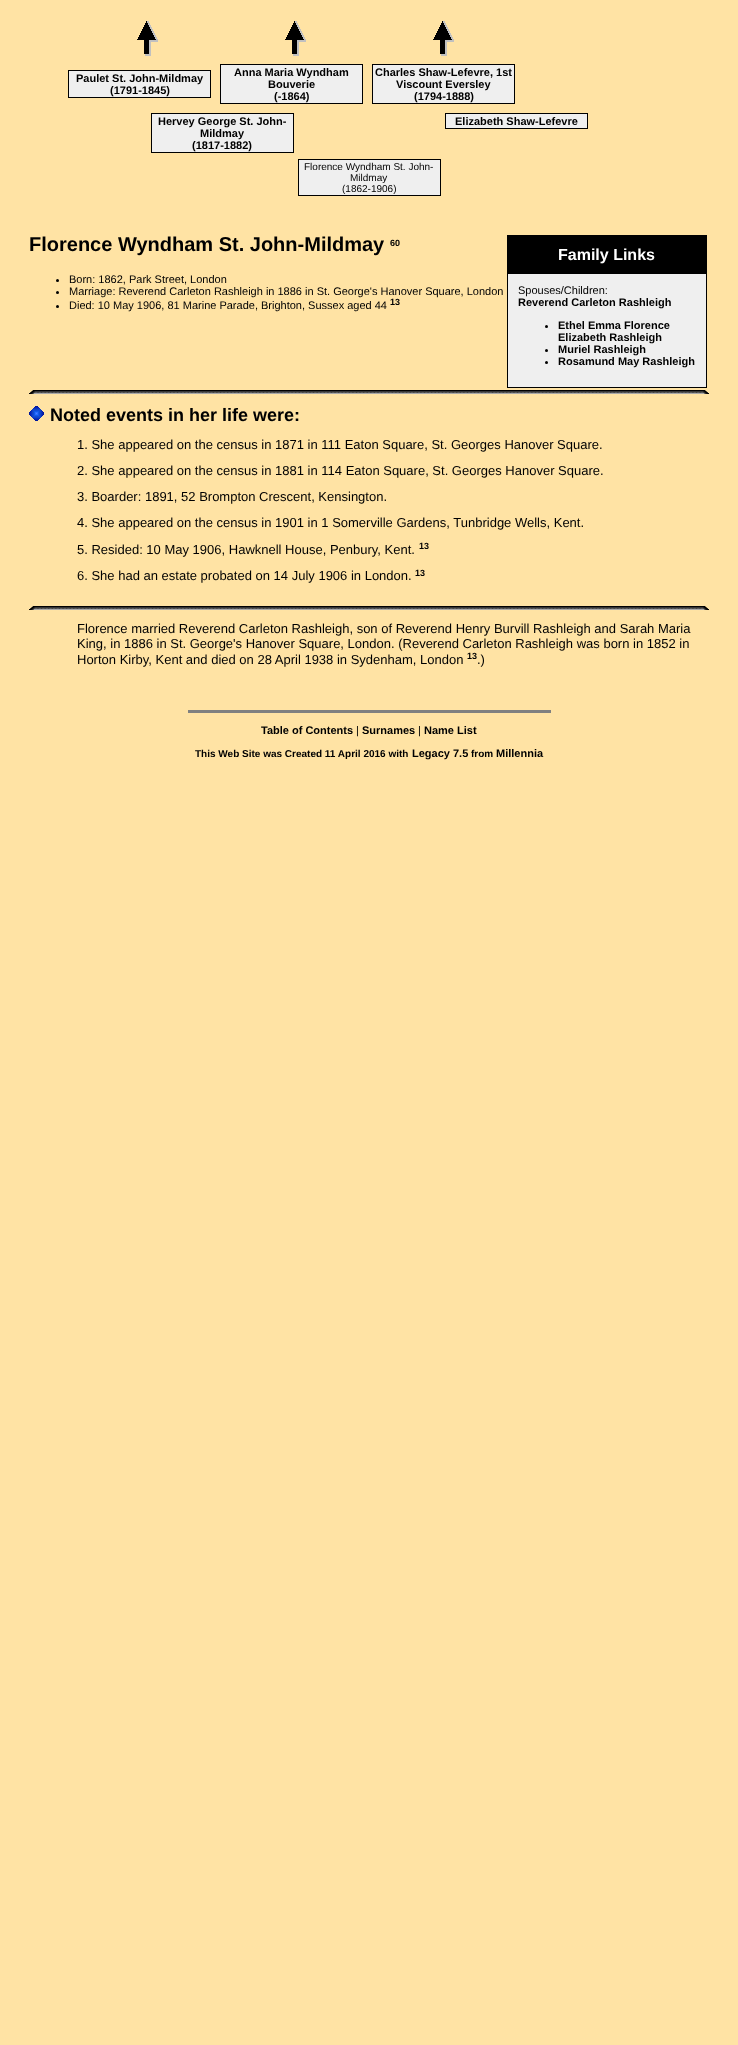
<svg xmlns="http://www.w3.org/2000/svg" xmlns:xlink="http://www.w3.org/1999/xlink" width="738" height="2045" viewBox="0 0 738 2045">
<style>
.cls-1{font:bold 11px Liberation Sans;fill:#000000}
.cls-2{font:10px Liberation Sans;fill:#000000}
.cls-3{font:bold 20px Liberation Sans;fill:#000000}
.cls-4{font:bold 9px Liberation Sans;fill:#000000}
.cls-5{font:11px Liberation Sans;fill:#000000}
.cls-6{font:bold 16px Liberation Sans;fill:#ffffff}
.cls-7{font:bold 18px Liberation Sans;fill:#000000}
.cls-8{font:13px Liberation Sans;fill:#000000}
.cls-9{font:bold 10px Liberation Sans;fill:#000000}
</style>
<rect width="100%" height="100%" fill="#ffe3a4"/>
<image xlink:href="image0.png" x="137" y="21" width="21" height="35"/>
<image xlink:href="image0.png" x="285" y="21" width="21" height="35"/>
<image xlink:href="image0.png" x="433" y="21" width="21" height="35"/>
<rect fill="#000000" x="68" y="70" width="143" height="28"/>
<rect fill="#efefef" x="69" y="71" width="141" height="26"/>
<rect fill="#000000" x="220" y="64" width="143" height="40"/>
<rect fill="#efefef" x="221" y="65" width="141" height="38"/>
<rect fill="#000000" x="372" y="64" width="143" height="40"/>
<rect fill="#efefef" x="373" y="65" width="141" height="38"/>
<rect fill="#000000" x="151" y="113" width="143" height="40"/>
<rect fill="#efefef" x="152" y="114" width="141" height="38"/>
<rect fill="#000000" x="445" y="113" width="143" height="16"/>
<rect fill="#efefef" x="446" y="114" width="141" height="14"/>
<rect fill="#000000" x="298" y="159" width="143" height="37"/>
<rect fill="#efefef" x="299" y="160" width="141" height="35"/>
<circle fill="#000000" cx="57.5" cy="280.5" r="1.5"/>
<circle fill="#000000" cx="57.5" cy="292.5" r="1.5"/>
<circle fill="#000000" cx="57.5" cy="306.5" r="1.5"/>
<rect fill="#000000" x="507" y="235" width="200" height="153"/>
<rect fill="#efefef" x="508" y="274" width="198" height="113"/>
<circle fill="#000000" cx="546.5" cy="326.5" r="1.5"/>
<circle fill="#000000" cx="546.5" cy="350.5" r="1.5"/>
<circle fill="#000000" cx="546.5" cy="362.5" r="1.5"/>
<image xlink:href="image1.png" x="29" y="390" width="680" height="4"/>
<image xlink:href="image2.png" x="29" y="406" width="15" height="15"/>
<image xlink:href="image1.png" x="29" y="606" width="680" height="4"/>
<rect fill="#808080" x="188" y="710" width="363" height="3"/>
<text class="cls-1" x="76" y="82">Paulet St. John-Mildmay</text>
<text class="cls-1" x="110" y="94">(1791-1845)</text>
<text class="cls-1" x="234" y="76">Anna Maria Wyndham</text>
<text class="cls-1" x="268" y="88">Bouverie</text>
<text class="cls-1" x="274" y="100">(-1864)</text>
<text class="cls-1" x="375" y="76">Charles Shaw-Lefevre, 1st</text>
<text class="cls-1" x="396" y="88">Viscount Eversley</text>
<text class="cls-1" x="414" y="100">(1794-1888)</text>
<text class="cls-1" x="158" y="125">Hervey George St. John-</text>
<text class="cls-1" x="200" y="137">Mildmay</text>
<text class="cls-1" x="192" y="149">(1817-1882)</text>
<text class="cls-1" x="455" y="125">Elizabeth Shaw-Lefevre</text>
<text class="cls-2" x="304" y="170">Florence Wyndham St. John-</text>
<text class="cls-2" x="350" y="181">Mildmay</text>
<text class="cls-2" x="342" y="192">(1862-1906)</text>
<text class="cls-3" x="29" y="251">Florence Wyndham St. John-Mildmay</text>
<text class="cls-4" x="390" y="246">60</text>
<text class="cls-5"><tspan x="69" y="283">Born: 1862, Park Street, London</tspan><tspan x="69" y="295">Marriage: Reverend Carleton Rashleigh in 1886 in St. George's Hanover Square, London</tspan><tspan x="69" y="309">Died: 10 May 1906, 81 Marine Parade, Brighton, Sussex aged 44</tspan></text>
<text class="cls-4" x="390" y="305">13</text>
<text class="cls-6" x="558" y="260">Family Links</text>
<text class="cls-5" x="518" y="294">Spouses/Children:</text>
<text class="cls-1" x="518" y="306">Reverend Carleton Rashleigh</text>
<text class="cls-1"><tspan x="558" y="329">Ethel Emma Florence</tspan><tspan x="558" y="341">Elizabeth Rashleigh</tspan><tspan x="558" y="353">Muriel Rashleigh</tspan><tspan x="558" y="365">Rosamund May Rashleigh</tspan></text>
<text class="cls-7" x="50" y="421">Noted events in her life were:</text>
<text class="cls-8" x="77" y="449">1. She appeared on the census in 1871 in 111 Eaton Square, St. Georges Hanover Square.</text>
<text class="cls-8" x="77" y="475">2. She appeared on the census in 1881 in 114 Eaton Square, St. Georges Hanover Square.</text>
<text class="cls-8" x="77" y="501">3. Boarder: 1891, 52 Brompton Crescent, Kensington.</text>
<text class="cls-8" x="77" y="527">4. She appeared on the census in 1901 in 1 Somerville Gardens, Tunbridge Wells, Kent.</text>
<text class="cls-8" x="77" y="554">5. Resided: 10 May 1906, Hawknell House, Penbury, Kent.</text>
<text class="cls-4" x="419" y="549">13</text>
<text class="cls-8" x="77" y="580">6. She had an estate probated on 14 July 1906 in London.</text>
<text class="cls-4" x="415" y="576">13</text>
<text class="cls-8"><tspan x="77" y="633">Florence married Reverend Carleton Rashleigh, son of Reverend Henry Burvill Rashleigh and Sarah Maria</tspan><tspan x="77" y="648">King, in 1886 in St. George's Hanover Square, London. (Reverend Carleton Rashleigh was born in 1852 in</tspan><tspan x="77" y="664">Horton Kirby, Kent and died on 28 April 1938 in Sydenham, London</tspan></text>
<text class="cls-4" x="467" y="659">13</text>
<text class="cls-8" x="477" y="664">.)</text>
<text class="cls-1" x="261" y="734">Table of Contents</text>
<text class="cls-5" x="356" y="734">|</text>
<text class="cls-1" x="362" y="734">Surnames</text>
<text class="cls-5" x="418" y="734">|</text>
<text class="cls-1" x="424" y="734">Name List</text>
<text class="cls-9" x="195" y="757">This Web Site was Created 11 April 2016 with</text>
<text class="cls-1" x="412" y="757">Legacy 7.5</text>
<text class="cls-9" x="471" y="757">from</text>
<text class="cls-1" x="496" y="757">Millennia</text>
</svg>
